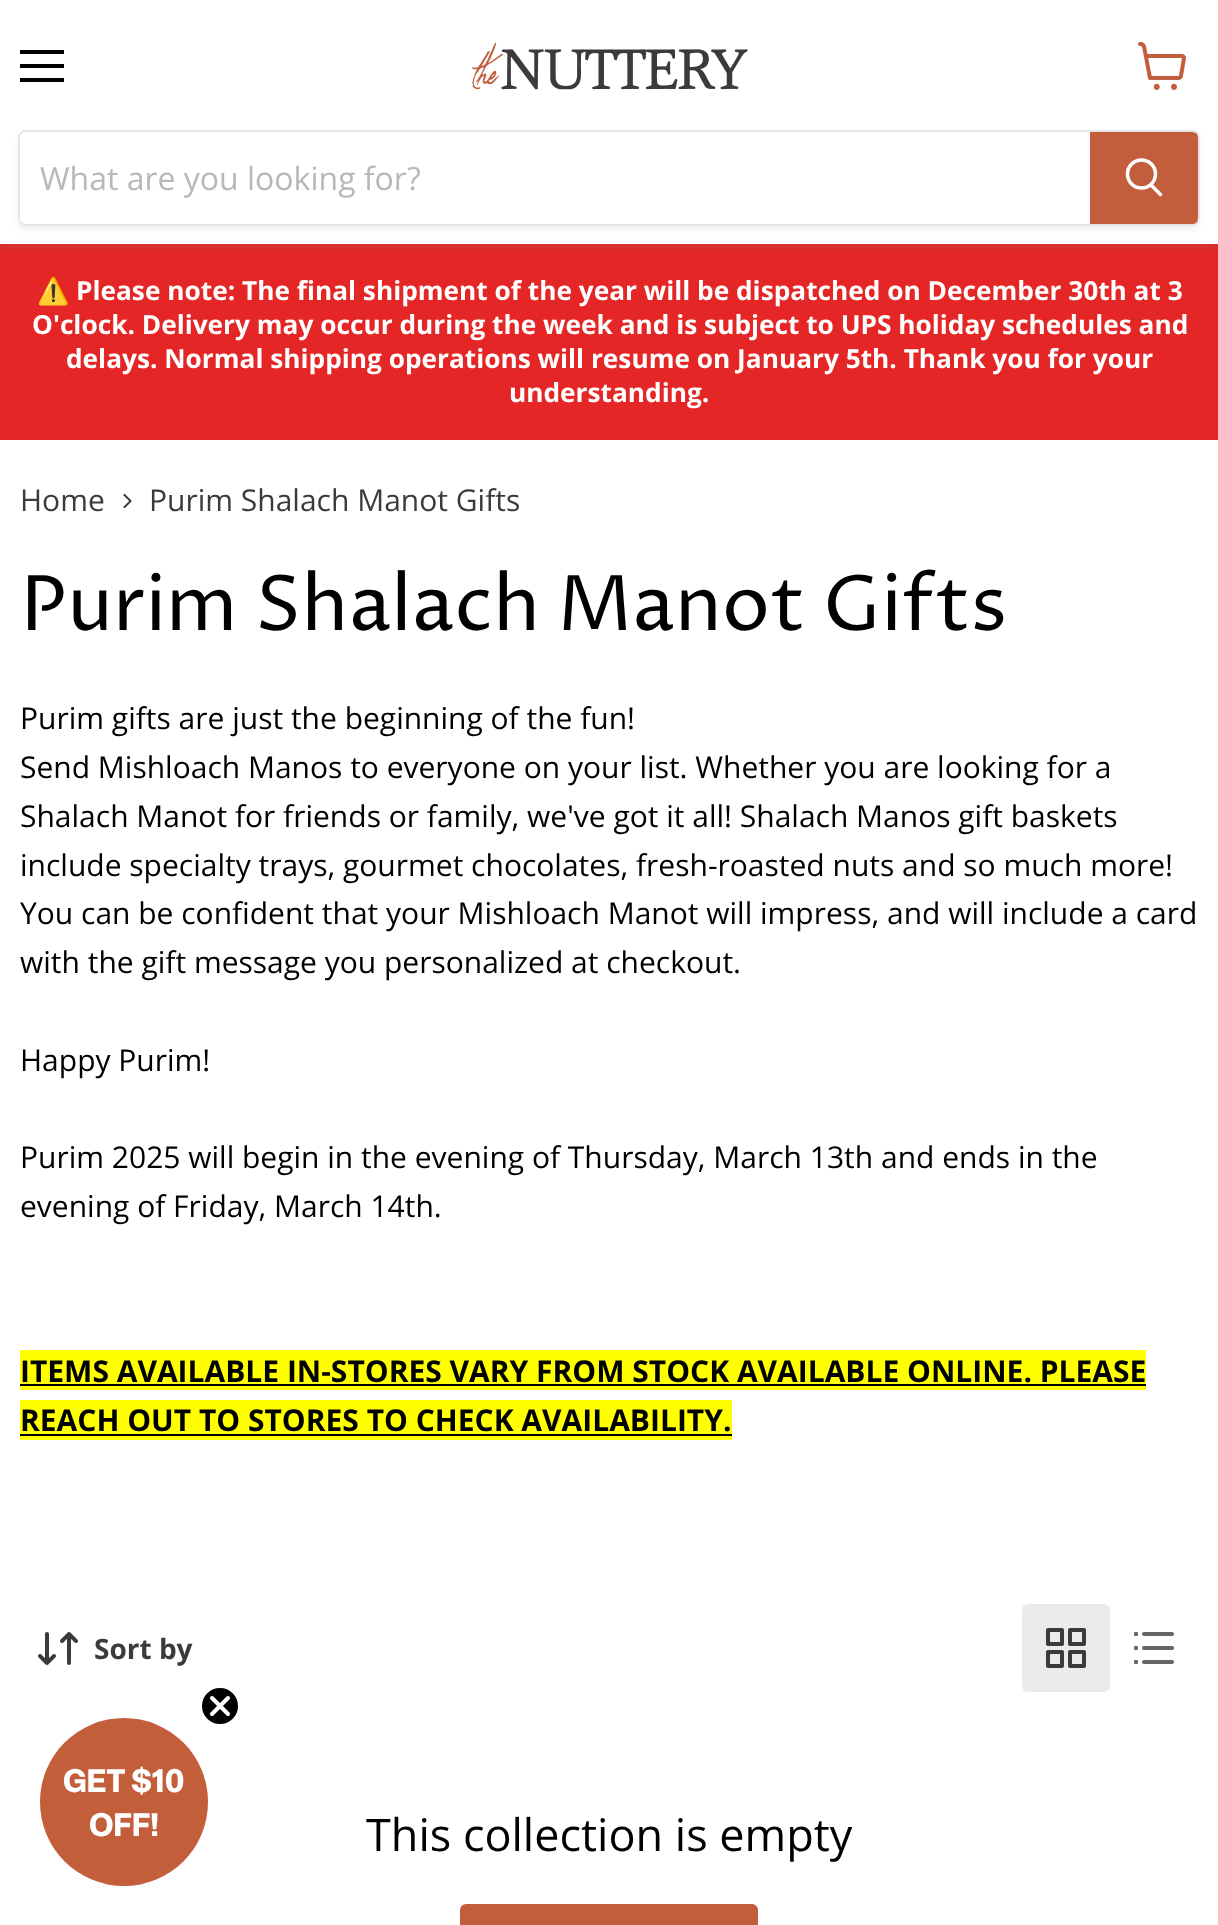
<svg xmlns="http://www.w3.org/2000/svg" xmlns:xlink="http://www.w3.org/1999/xlink" width="1218" height="1925" viewBox="0 0 1218 1925">
<style>
.cls-1{font:32px Open Sans;fill:#b8b8b8}
.cls-2{font:bold 26.25px Noto Color Emoji;fill:#ffffff}
.cls-3{font:bold 26.25px Open Sans;fill:#ffffff}
.cls-4{font:30px Open Sans;fill:#3b3b3b}
.cls-5{font:76.5px Proza Libre;fill:#000000}
.cls-6{font:30px Open Sans;fill:#000000}
.cls-7{font:bold 30px Open Sans;fill:#000000}
.cls-8{font:bold 28px Open Sans;fill:#3b3b3b}
.cls-9{font:45px Open Sans;fill:#000000}
.cls-10{font:bold 32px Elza;fill:#ffffff}
</style>
<defs>
<clipPath id="clip1"><rect x="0" y="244" width="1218" height="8"/></clipPath>
<clipPath id="clip2"><path d="M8 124H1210V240H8ZM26 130H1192C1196.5 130 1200 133.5 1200 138V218C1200 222.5 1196.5 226 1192 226H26C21.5 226 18 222.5 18 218V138C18 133.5 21.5 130 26 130Z" clip-rule="evenodd"/></clipPath>
</defs>
<rect width="100%" height="100%" fill="#ffffff"/>
<rect fill="#e42626" x="0" y="244" width="1218" height="196"/>
<g clip-path="url(#clip1)">
<rect fill="#808080" fill-opacity="0.25" filter="blur(4px)" x="0" y="2" width="1218" height="244"/>
</g>
<rect fill="#000000" x="20" y="50" width="44" height="4"/>
<rect fill="#000000" x="20" y="64" width="44" height="4"/>
<rect fill="#000000" x="20" y="78" width="44" height="4"/>
<image xlink:href="image0.png" x="1138" y="42" width="48" height="48"/>
<image xlink:href="image1.png" x="472" y="42" width="276" height="48"/>
<g clip-path="url(#clip2)">
<rect fill="#808080" fill-opacity="0.11" filter="blur(3px)" x="18" y="134" width="1182" height="96" rx="8"/>
</g>
<rect fill="none" stroke="#808080" stroke-opacity="0.2" stroke-width="2" x="19" y="131" width="1180" height="94" rx="7"/>
<path fill="#ffffff" d="M26 132H1090V224H26C22.5 224 20 221.5 20 218V138C20 134.5 22.5 132 26 132Z"/>
<path fill="#c35e3c" stroke="#c35e3c" stroke-width="2" d="M1091 133H1192C1195 133 1197 135 1197 138V218C1197 221 1195 223 1192 223H1091Z"/>
<path fill="none" stroke="#ffffff" stroke-width="3.5" stroke-linecap="round" d="M1160.5 194.5L1151 185"/>
<circle fill="none" stroke="#ffffff" stroke-width="3.5" cx="1141.5" cy="174" r="14"/>
<image xlink:href="image2.png" x="123" y="493" width="9" height="16"/>
<rect fill="#ffff00" x="20" y="1350" width="1126" height="40"/>
<rect fill="#000000" x="20" y="1384" width="1126" height="2"/>
<rect fill="#ffff00" x="20" y="1400" width="712" height="40"/>
<rect fill="#000000" x="20" y="1434" width="712" height="2"/>
<image xlink:href="image3.png" x="38" y="1632" width="40" height="33"/>
<rect fill="#ebebeb" x="1022" y="1604" width="88" height="88" rx="6"/>
<image xlink:href="image4.png" x="1046" y="1628" width="40" height="40"/>
<image xlink:href="image5.png" x="1134" y="1632" width="40" height="32"/>
<rect fill="#c35e3c" stroke="#c35e3c" stroke-width="2" x="461" y="1905" width="296" height="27" rx="5"/>
<circle fill="#c35e3b" cx="124" cy="1802" r="84"/>
<circle fill="#000000" stroke="#ffffff" stroke-width="2" cx="220" cy="1706" r="19"/>
<path fill="none" stroke="#ffffff" stroke-width="4" stroke-linecap="round" stroke-linejoin="round" d="M212 1698L228 1714M212 1714L228 1698Z"/>
<text class="cls-1" x="40" y="190">What are you looking for?</text>
<text class="cls-2" x="37" y="300">⚠️</text>
<text class="cls-3" x="76" y="300">Please note: The final shipment of the year will be dispatched on December 30th at 3</text>
<text class="cls-3" x="32" y="334">O'clock. Delivery may occur during the week and is subject to UPS holiday schedules and</text>
<text class="cls-3" x="66" y="368">delays. Normal shipping operations will resume on January 5th. Thank you for your</text>
<text class="cls-3" x="509" y="402">understanding.</text>
<text class="cls-4" x="20" y="511">Home</text>
<text class="cls-4" x="149" y="511">Purim Shalach Manot Gifts</text>
<text class="cls-5" x="20" y="630">Purim Shalach Manot Gifts</text>
<text class="cls-6"><tspan x="20" y="729">Purim gifts are just the beginning of the fun!</tspan><tspan x="20" y="778">Send Mishloach Manos to everyone on your list. Whether you are looking for a</tspan><tspan x="20" y="827">Shalach Manot for friends or family, we've got it all! Shalach Manos gift baskets</tspan><tspan x="20" y="876">include specialty trays, gourmet chocolates, fresh-roasted nuts and so much more!</tspan><tspan x="20" y="924">You can be confident that your Mishloach Manot will impress, and will include a card</tspan><tspan x="20" y="973">with the gift message you personalized at checkout.</tspan></text>
<text class="cls-6" x="20" y="1071">Happy Purim!</text>
<text class="cls-6"><tspan x="20" y="1168">Purim 2025 will begin in the evening of Thursday, March 13th and ends in the</tspan><tspan x="20" y="1217">evening of Friday, March 14th.</tspan></text>
<text class="cls-7"><tspan x="20" y="1382">ITEMS AVAILABLE IN-STORES VARY FROM STOCK AVAILABLE ONLINE. PLEASE</tspan><tspan x="20" y="1431">REACH OUT TO STORES TO CHECK AVAILABILITY.</tspan></text>
<text class="cls-8" x="94" y="1659">Sort by</text>
<text class="cls-9" x="366" y="1851">This collection is empty</text>
<text class="cls-10" x="63" y="1792">GET $10</text>
<text class="cls-10" x="89" y="1836">OFF!</text>
</svg>
